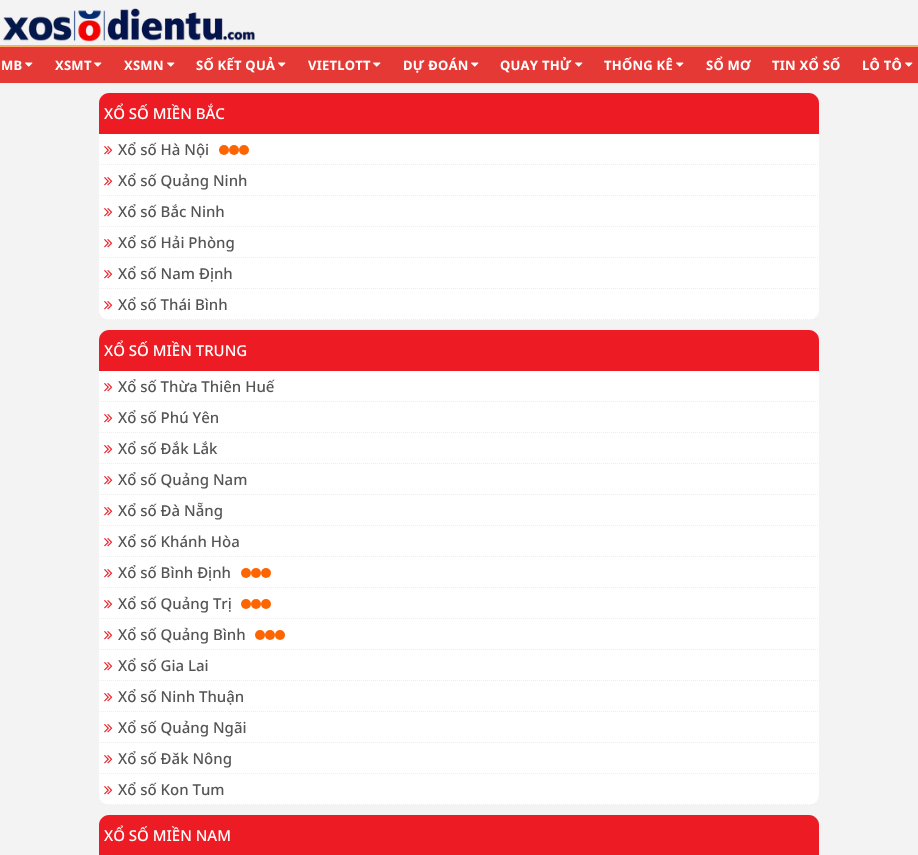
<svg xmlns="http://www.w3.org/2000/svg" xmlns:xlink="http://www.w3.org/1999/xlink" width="918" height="855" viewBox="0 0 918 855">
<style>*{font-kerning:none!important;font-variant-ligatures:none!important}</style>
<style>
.cls-1{font:bold 13px Noto Sans;letter-spacing:0.25px;fill:#ffffff}
.cls-2{font:500 15px Noto Sans;fill:#ffffff}
.cls-3{font:500 15px Noto Sans;fill:#555555}
</style>
<rect width="100%" height="100%" fill="#f3f3f3"/>
<rect fill="#f6b16a" x="0" y="45" width="918" height="2"/>
<image xlink:href="image0.png" x="3" y="8" width="252" height="34"/>
<rect fill="#e53935" x="0" y="47" width="918" height="36"/>
<image xlink:href="image1.png" x="25" y="62" width="8" height="5"/>
<image xlink:href="image1.png" x="94" y="62" width="8" height="5"/>
<image xlink:href="image1.png" x="167" y="62" width="8" height="5"/>
<image xlink:href="image1.png" x="278" y="62" width="8" height="5"/>
<image xlink:href="image1.png" x="373" y="62" width="8" height="5"/>
<image xlink:href="image1.png" x="471" y="62" width="8" height="5"/>
<image xlink:href="image1.png" x="575" y="62" width="8" height="5"/>
<image xlink:href="image1.png" x="676" y="62" width="8" height="5"/>
<image xlink:href="image1.png" x="905" y="62" width="8" height="5"/>
<rect fill="#ffffff" x="99" y="93" width="720" height="227" rx="10"/>
<path fill="#ed1c24" d="M109 93H809C814.5 93 819 97.5 819 103V134H99V103C99 97.5 103.5 93 109 93Z"/>
<path fill="none" stroke="#eeeeee" stroke-dasharray="1 1" d="M99 164.5H819"/>
<image xlink:href="image2.png" x="104" y="146" width="9" height="9"/>
<circle fill="#fd6502" cx="224" cy="150" r="5"/>
<circle fill="#fd6502" cx="234" cy="150" r="5"/>
<circle fill="#fd6502" cx="244" cy="150" r="5"/>
<path fill="none" stroke="#eeeeee" stroke-dasharray="1 1" d="M99 195.5H819"/>
<image xlink:href="image2.png" x="104" y="177" width="9" height="9"/>
<path fill="none" stroke="#eeeeee" stroke-dasharray="1 1" d="M99 226.5H819"/>
<image xlink:href="image2.png" x="104" y="208" width="9" height="9"/>
<path fill="none" stroke="#eeeeee" stroke-dasharray="1 1" d="M99 257.5H819"/>
<image xlink:href="image2.png" x="104" y="239" width="9" height="9"/>
<path fill="none" stroke="#eeeeee" stroke-dasharray="1 1" d="M99 288.5H819"/>
<image xlink:href="image2.png" x="104" y="270" width="9" height="9"/>
<path fill="none" stroke="#eeeeee" stroke-dasharray="1 1" d="M99 319.5H819"/>
<image xlink:href="image2.png" x="104" y="301" width="9" height="9"/>
<rect fill="#ffffff" x="99" y="330" width="720" height="475" rx="10"/>
<path fill="#ed1c24" d="M109 330H809C814.5 330 819 334.5 819 340V371H99V340C99 334.5 103.5 330 109 330Z"/>
<path fill="none" stroke="#eeeeee" stroke-dasharray="1 1" d="M99 401.5H819"/>
<image xlink:href="image2.png" x="104" y="383" width="9" height="9"/>
<path fill="none" stroke="#eeeeee" stroke-dasharray="1 1" d="M99 432.5H819"/>
<image xlink:href="image2.png" x="104" y="414" width="9" height="9"/>
<path fill="none" stroke="#eeeeee" stroke-dasharray="1 1" d="M99 463.5H819"/>
<image xlink:href="image2.png" x="104" y="445" width="9" height="9"/>
<path fill="none" stroke="#eeeeee" stroke-dasharray="1 1" d="M99 494.5H819"/>
<image xlink:href="image2.png" x="104" y="476" width="9" height="9"/>
<path fill="none" stroke="#eeeeee" stroke-dasharray="1 1" d="M99 525.5H819"/>
<image xlink:href="image2.png" x="104" y="507" width="9" height="9"/>
<path fill="none" stroke="#eeeeee" stroke-dasharray="1 1" d="M99 556.5H819"/>
<image xlink:href="image2.png" x="104" y="538" width="9" height="9"/>
<path fill="none" stroke="#eeeeee" stroke-dasharray="1 1" d="M99 587.5H819"/>
<image xlink:href="image2.png" x="104" y="569" width="9" height="9"/>
<circle fill="#fd6502" cx="246" cy="573" r="5"/>
<circle fill="#fd6502" cx="256" cy="573" r="5"/>
<circle fill="#fd6502" cx="266" cy="573" r="5"/>
<path fill="none" stroke="#eeeeee" stroke-dasharray="1 1" d="M99 618.5H819"/>
<image xlink:href="image2.png" x="104" y="600" width="9" height="9"/>
<circle fill="#fd6502" cx="246" cy="604" r="5"/>
<circle fill="#fd6502" cx="256" cy="604" r="5"/>
<circle fill="#fd6502" cx="266" cy="604" r="5"/>
<path fill="none" stroke="#eeeeee" stroke-dasharray="1 1" d="M99 649.5H819"/>
<image xlink:href="image2.png" x="104" y="631" width="9" height="9"/>
<circle fill="#fd6502" cx="260" cy="635" r="5"/>
<circle fill="#fd6502" cx="270" cy="635" r="5"/>
<circle fill="#fd6502" cx="280" cy="635" r="5"/>
<path fill="none" stroke="#eeeeee" stroke-dasharray="1 1" d="M99 680.5H819"/>
<image xlink:href="image2.png" x="104" y="662" width="9" height="9"/>
<path fill="none" stroke="#eeeeee" stroke-dasharray="1 1" d="M99 711.5H819"/>
<image xlink:href="image2.png" x="104" y="693" width="9" height="9"/>
<path fill="none" stroke="#eeeeee" stroke-dasharray="1 1" d="M99 742.5H819"/>
<image xlink:href="image2.png" x="104" y="724" width="9" height="9"/>
<path fill="none" stroke="#eeeeee" stroke-dasharray="1 1" d="M99 773.5H819"/>
<image xlink:href="image2.png" x="104" y="755" width="9" height="9"/>
<path fill="none" stroke="#eeeeee" stroke-dasharray="1 1" d="M99 804.5H819"/>
<image xlink:href="image2.png" x="104" y="786" width="9" height="9"/>
<path fill="#ed1c24" d="M109 815H809C814.5 815 819 819.5 819 825V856H99V825C99 819.5 103.5 815 109 815Z"/>
<text class="cls-1" x="1" y="70">MB</text>
<text class="cls-1" x="55" y="70">XSMT</text>
<text class="cls-1" x="124" y="70">XSMN</text>
<text class="cls-1" x="196" y="70">SỐ KẾT QUẢ</text>
<text class="cls-1" x="308" y="70">VIETLOTT</text>
<text class="cls-1" x="403" y="70">DỰ ĐOÁN</text>
<text class="cls-1" x="500" y="70">QUAY THỬ</text>
<text class="cls-1" x="604" y="70">THỐNG KÊ</text>
<text class="cls-1" x="706" y="70">SỔ MƠ</text>
<text class="cls-1" x="772" y="70">TIN XỔ SỐ</text>
<text class="cls-1" x="862" y="70">LÔ TÔ</text>
<text class="cls-2" x="104" y="119">XỔ SỐ MIỀN BẮC</text>
<text class="cls-3" x="118" y="155">Xổ số Hà Nội</text>
<text class="cls-3" x="118" y="186">Xổ số Quảng Ninh</text>
<text class="cls-3" x="118" y="217">Xổ số Bắc Ninh</text>
<text class="cls-3" x="118" y="248">Xổ số Hải Phòng</text>
<text class="cls-3" x="118" y="279">Xổ số Nam Định</text>
<text class="cls-3" x="118" y="310">Xổ số Thái Bình</text>
<text class="cls-2" x="104" y="356">XỔ SỐ MIỀN TRUNG</text>
<text class="cls-3" x="118" y="392">Xổ số Thừa Thiên Huế</text>
<text class="cls-3" x="118" y="423">Xổ số Phú Yên</text>
<text class="cls-3" x="118" y="454">Xổ số Đắk Lắk</text>
<text class="cls-3" x="118" y="485">Xổ số Quảng Nam</text>
<text class="cls-3" x="118" y="516">Xổ số Đà Nẵng</text>
<text class="cls-3" x="118" y="547">Xổ số Khánh Hòa</text>
<text class="cls-3" x="118" y="578">Xổ số Bình Định</text>
<text class="cls-3" x="118" y="609">Xổ số Quảng Trị</text>
<text class="cls-3" x="118" y="640">Xổ số Quảng Bình</text>
<text class="cls-3" x="118" y="671">Xổ số Gia Lai</text>
<text class="cls-3" x="118" y="702">Xổ số Ninh Thuận</text>
<text class="cls-3" x="118" y="733">Xổ số Quảng Ngãi</text>
<text class="cls-3" x="118" y="764">Xổ số Đăk Nông</text>
<text class="cls-3" x="118" y="795">Xổ số Kon Tum</text>
<text class="cls-2" x="104" y="841">XỔ SỐ MIỀN NAM</text>
</svg>
